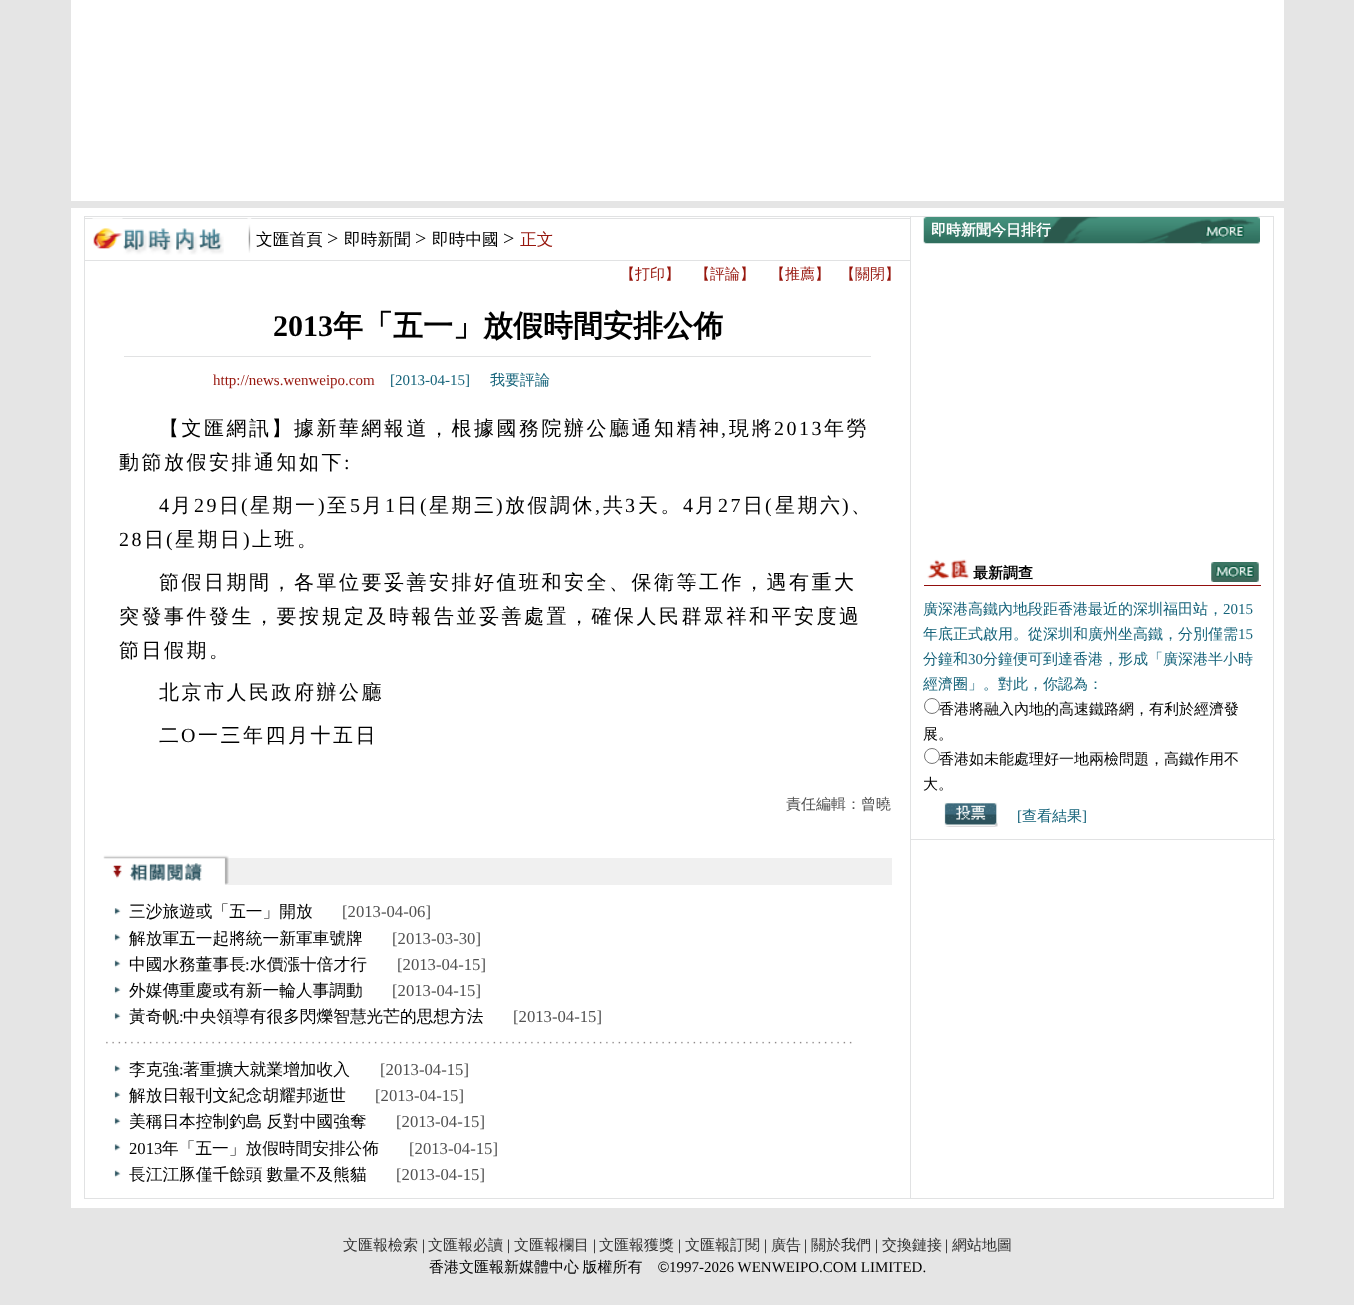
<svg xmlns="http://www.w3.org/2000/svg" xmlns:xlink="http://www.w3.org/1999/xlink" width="1354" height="1305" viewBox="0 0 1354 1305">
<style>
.cls-1{font:500 16.7px WenQuanYi Zen Hei;fill:#000000}
.cls-2{font:20px Liberation Serif;fill:#000000}
.cls-3{font:500 16.7px WenQuanYi Zen Hei;fill:#97170e}
.cls-4{font:500 15px WenQuanYi Zen Hei;fill:#97170e}
.cls-5{font:bold 30px Liberation Serif;fill:#000000}
.cls-6{font:bold 30px WenQuanYi Zen Hei;fill:#000000}
.cls-7{font:15px Liberation Serif;fill:#97170e}
.cls-8{font:15px Liberation Serif;fill:#15637a}
.cls-9{font:500 15px WenQuanYi Zen Hei;fill:#15637a}
.cls-10{font:500 20px WenQuanYi Zen Hei;letter-spacing:2.5px;fill:#000000}
.cls-11{font:20px Liberation Serif;letter-spacing:2.5px;fill:#000000}
.cls-12{font:500 15px WenQuanYi Zen Hei;fill:#515151}
.cls-13{font:16.7px Liberation Serif;fill:#515151}
.cls-14{font:16.7px Liberation Serif;fill:#000000}
.cls-15{font:bold 15px WenQuanYi Zen Hei;fill:#ffffff}
.cls-16{font:bold 15px WenQuanYi Zen Hei;fill:#000000}
.cls-17{font:500 15px WenQuanYi Zen Hei;fill:#000000}
.cls-18{font:500 15px WenQuanYi Zen Hei;fill:#333333}
.cls-19{font:15px Liberation Serif;fill:#000000}
.cls-20{font:15px Liberation Sans;fill:#000000}
</style>
<rect width="100%" height="100%" fill="#e5e5e5"/>
<rect fill="#ffffff" x="71" y="0" width="1213" height="201"/>
<rect fill="#ffffff" x="71" y="208" width="1213" height="1000"/>
<rect fill="none" stroke="#e1e2e3" x="84.5" y="216.5" width="826" height="982"/>
<rect fill="#e1e2e3" x="85" y="218" width="825" height="1"/>
<rect fill="#e1e2e3" x="85" y="260" width="825" height="1"/>
<image xlink:href="image0.png" x="92" y="218" width="31" height="31"/>
<image xlink:href="image1.png" x="123" y="228" width="101" height="27"/>
<image xlink:href="image2.png" x="247" y="218" width="5" height="35"/>
<rect fill="#e1e2e3" x="124" y="356" width="747" height="1"/>
<rect fill="#f0f0f0" x="228" y="858" width="664" height="27"/>
<image xlink:href="image3.png" x="103" y="855" width="126" height="30"/>
<image xlink:href="image4.png" x="114" y="908" width="7" height="7"/>
<image xlink:href="image5.png" x="114" y="934" width="7" height="7"/>
<image xlink:href="image6.png" x="114" y="960" width="7" height="8"/>
<image xlink:href="image7.png" x="114" y="986" width="7" height="8"/>
<image xlink:href="image4.png" x="114" y="1013" width="7" height="7"/>
<image xlink:href="image8.png" x="106" y="1041" width="746" height="3"/>
<image xlink:href="image6.png" x="114" y="1065" width="7" height="8"/>
<image xlink:href="image7.png" x="114" y="1091" width="7" height="8"/>
<image xlink:href="image4.png" x="114" y="1118" width="7" height="7"/>
<image xlink:href="image5.png" x="114" y="1144" width="7" height="7"/>
<image xlink:href="image6.png" x="114" y="1170" width="7" height="8"/>
<rect fill="#e1e2e3" x="911" y="216" width="363" height="1"/>
<rect fill="#e1e2e3" x="1273" y="216" width="1" height="983"/>
<rect fill="#e1e2e3" x="911" y="1198" width="363" height="1"/>
<image xlink:href="image9.png" x="923" y="217" width="337" height="27"/>
<image xlink:href="image10.png" x="1201" y="225" width="59" height="19"/>
<rect fill="#920e0d" x="924" y="585" width="337" height="1"/>
<image xlink:href="image11.png" x="927" y="559" width="42" height="20"/>
<image xlink:href="image12.png" x="1211" y="562" width="48" height="20"/>
<circle fill="none" stroke="#767676" cx="932" cy="706" r="7.5"/>
<circle fill="none" stroke="#767676" cx="932" cy="756" r="7.5"/>
<image xlink:href="image13.png" x="944" y="802" width="54" height="25"/>
<rect fill="#e1e2e3" x="911" y="839" width="364" height="1"/>
<text class="cls-1" x="256" y="245">文匯首頁</text>
<text class="cls-2" x="327" y="245">&gt;</text>
<text class="cls-1" x="344" y="245">即時新聞</text>
<text class="cls-2" x="415" y="245">&gt;</text>
<text class="cls-1" x="432" y="245">即時中國</text>
<text class="cls-2" x="503" y="245">&gt;</text>
<text class="cls-3" x="520" y="245">正文</text>
<text class="cls-4" x="620" y="279">【打印】</text>
<text class="cls-4" x="695" y="279">【評論】</text>
<text class="cls-4" x="770" y="279">【推薦】</text>
<text class="cls-4" x="840" y="279">【關閉】</text>
<text class="cls-5" x="273" y="336">2013</text>
<text class="cls-6" x="333" y="336">年「五一」放假時間安排公佈</text>
<text class="cls-7" x="213" y="385">http://news.wenweipo.com</text>
<text class="cls-8" x="390" y="385">[2013-04-15]</text>
<text class="cls-9" x="490" y="385">我要評論</text>
<text class="cls-10" x="159" y="435">【文匯網訊】據新華網報道，根據國務院辦公廳通知精神</text>
<text class="cls-11" x="721" y="435">,</text>
<text class="cls-10" x="729" y="435">現將</text>
<text class="cls-11" x="774" y="435">2013</text>
<text class="cls-10" x="824" y="435">年勞</text>
<text class="cls-10" x="119" y="469">動節放假安排通知如下</text>
<text class="cls-11" x="344" y="469">:</text>
<text class="cls-11" x="159" y="512">4</text>
<text class="cls-10" x="171" y="512">月</text>
<text class="cls-11" x="194" y="512">29</text>
<text class="cls-10" x="219" y="512">日</text>
<text class="cls-11" x="241" y="512">(</text>
<text class="cls-10" x="250" y="512">星期一</text>
<text class="cls-11" x="318" y="512">)</text>
<text class="cls-10" x="327" y="512">至</text>
<text class="cls-11" x="350" y="512">5</text>
<text class="cls-10" x="362" y="512">月</text>
<text class="cls-11" x="385" y="512">1</text>
<text class="cls-10" x="397" y="512">日</text>
<text class="cls-11" x="420" y="512">(</text>
<text class="cls-10" x="429" y="512">星期三</text>
<text class="cls-11" x="496" y="512">)</text>
<text class="cls-10" x="505" y="512">放假調休</text>
<text class="cls-11" x="595" y="512">,</text>
<text class="cls-10" x="603" y="512">共</text>
<text class="cls-11" x="625" y="512">3</text>
<text class="cls-10" x="638" y="512">天。</text>
<text class="cls-11" x="683" y="512">4</text>
<text class="cls-10" x="695" y="512">月</text>
<text class="cls-11" x="718" y="512">27</text>
<text class="cls-10" x="743" y="512">日</text>
<text class="cls-11" x="765" y="512">(</text>
<text class="cls-10" x="775" y="512">星期六</text>
<text class="cls-11" x="842" y="512">)</text>
<text class="cls-10" x="851" y="512">、</text>
<text class="cls-11" x="119" y="546">28</text>
<text class="cls-10" x="144" y="546">日</text>
<text class="cls-11" x="166" y="546">(</text>
<text class="cls-10" x="175" y="546">星期日</text>
<text class="cls-11" x="243" y="546">)</text>
<text class="cls-10" x="252" y="546">上班。</text>
<text class="cls-10" x="159" y="589">節假日期間，各單位要妥善安排好值班和安全、保衛等工作，遇有重大</text>
<text class="cls-10"><tspan x="119" y="623">突發事件發生，要按規定及時報告並妥善處置，確保人民群眾祥和平安度過</tspan><tspan x="119" y="657">節日假期。</tspan></text>
<text class="cls-10" x="159" y="699">北京市人民政府辦公廳</text>
<text class="cls-10" x="159" y="742">二</text>
<text class="cls-11" x="181" y="742">O</text>
<text class="cls-10" x="198" y="742">一三年四月十五日</text>
<text class="cls-12" x="786" y="809">責任編輯：曾曉</text>
<text class="cls-1" x="129" y="917">三沙旅遊或「五一」開放</text>
<text class="cls-13" x="342" y="917">[2013-04-06]</text>
<text class="cls-1" x="129" y="944">解放軍五一起將統一新軍車號牌</text>
<text class="cls-13" x="392" y="944">[2013-03-30]</text>
<text class="cls-1" x="129" y="970">中國水務董事長</text>
<text class="cls-14" x="245" y="970">:</text>
<text class="cls-1" x="250" y="970">水價漲十倍才行</text>
<text class="cls-13" x="397" y="970">[2013-04-15]</text>
<text class="cls-1" x="129" y="996">外媒傳重慶或有新一輪人事調動</text>
<text class="cls-13" x="392" y="996">[2013-04-15]</text>
<text class="cls-1" x="129" y="1022">黃奇帆</text>
<text class="cls-14" x="179" y="1022">:</text>
<text class="cls-1" x="183" y="1022">中央領導有很多閃爍智慧光芒的思想方法</text>
<text class="cls-13" x="513" y="1022">[2013-04-15]</text>
<text class="cls-1" x="129" y="1075">李克強</text>
<text class="cls-14" x="179" y="1075">:</text>
<text class="cls-1" x="183" y="1075">著重擴大就業增加收入</text>
<text class="cls-13" x="380" y="1075">[2013-04-15]</text>
<text class="cls-1" x="129" y="1101">解放日報刊文紀念胡耀邦逝世</text>
<text class="cls-13" x="375" y="1101">[2013-04-15]</text>
<text class="cls-1" x="129" y="1127" word-spacing="-1">美稱日本控制釣島 反對中國強奪</text>
<text class="cls-13" x="396" y="1127">[2013-04-15]</text>
<text class="cls-14" x="129" y="1154">2013</text>
<text class="cls-1" x="162" y="1154">年「五一」放假時間安排公佈</text>
<text class="cls-13" x="409" y="1154">[2013-04-15]</text>
<text class="cls-1" x="129" y="1180" word-spacing="-1">長江江豚僅千餘頭 數量不及熊貓</text>
<text class="cls-13" x="396" y="1180">[2013-04-15]</text>
<text class="cls-15" x="931" y="235">即時新聞今日排行</text>
<text class="cls-16" x="973" y="578">最新調查</text>
<text class="cls-9" x="923" y="614">廣深港高鐵內地段距香港最近的深圳福田站，</text>
<text class="cls-8" x="1223" y="614">2015</text>
<text class="cls-9" x="923" y="639">年底正式啟用。從深圳和廣州坐高鐵，分別僅需</text>
<text class="cls-8" x="1238" y="639">15</text>
<text class="cls-9" x="923" y="664">分鐘和</text>
<text class="cls-8" x="968" y="664">30</text>
<text class="cls-9" x="983" y="664">分鐘便可到達香港，形成「廣深港半小時</text>
<text class="cls-9" x="923" y="689">經濟圈」。對此，你認為：</text>
<text class="cls-17" x="939" y="714">香港將融入內地的高速鐵路網，有利於經濟發</text>
<text class="cls-17" x="923" y="739">展。</text>
<text class="cls-17" x="939" y="764">香港如未能處理好一地兩檢問題，高鐵作用不</text>
<text class="cls-17" x="923" y="789">大。</text>
<text class="cls-8" x="1017" y="821">[</text>
<text class="cls-9" x="1022" y="821">查看結果</text>
<text class="cls-8" x="1082" y="821">]</text>
<text class="cls-18" x="343" y="1250">文匯報檢索</text>
<text class="cls-19" x="422" y="1250">|</text>
<text class="cls-18" x="428" y="1250">文匯報必讀</text>
<text class="cls-19" x="507" y="1250">|</text>
<text class="cls-18" x="514" y="1250">文匯報欄目</text>
<text class="cls-19" x="593" y="1250">|</text>
<text class="cls-18" x="599" y="1250">文匯報獲獎</text>
<text class="cls-19" x="678" y="1250">|</text>
<text class="cls-18" x="685" y="1250">文匯報訂閱</text>
<text class="cls-19" x="764" y="1250">|</text>
<text class="cls-18" x="771" y="1250">廣告</text>
<text class="cls-19" x="804" y="1250">|</text>
<text class="cls-18" x="811" y="1250">關於我們</text>
<text class="cls-19" x="875" y="1250">|</text>
<text class="cls-18" x="882" y="1250">交換鏈接</text>
<text class="cls-19" x="945" y="1250">|</text>
<text class="cls-18" x="952" y="1250">網站地圖</text>
<text class="cls-17" x="429" y="1272" word-spacing="-1">香港文匯報新媒體中心 版權所有</text>
<text class="cls-20" x="658" y="1272">©</text>
<text class="cls-19" x="669" y="1272">1997-2026 WENWEIPO.COM LIMITED.</text>
</svg>
